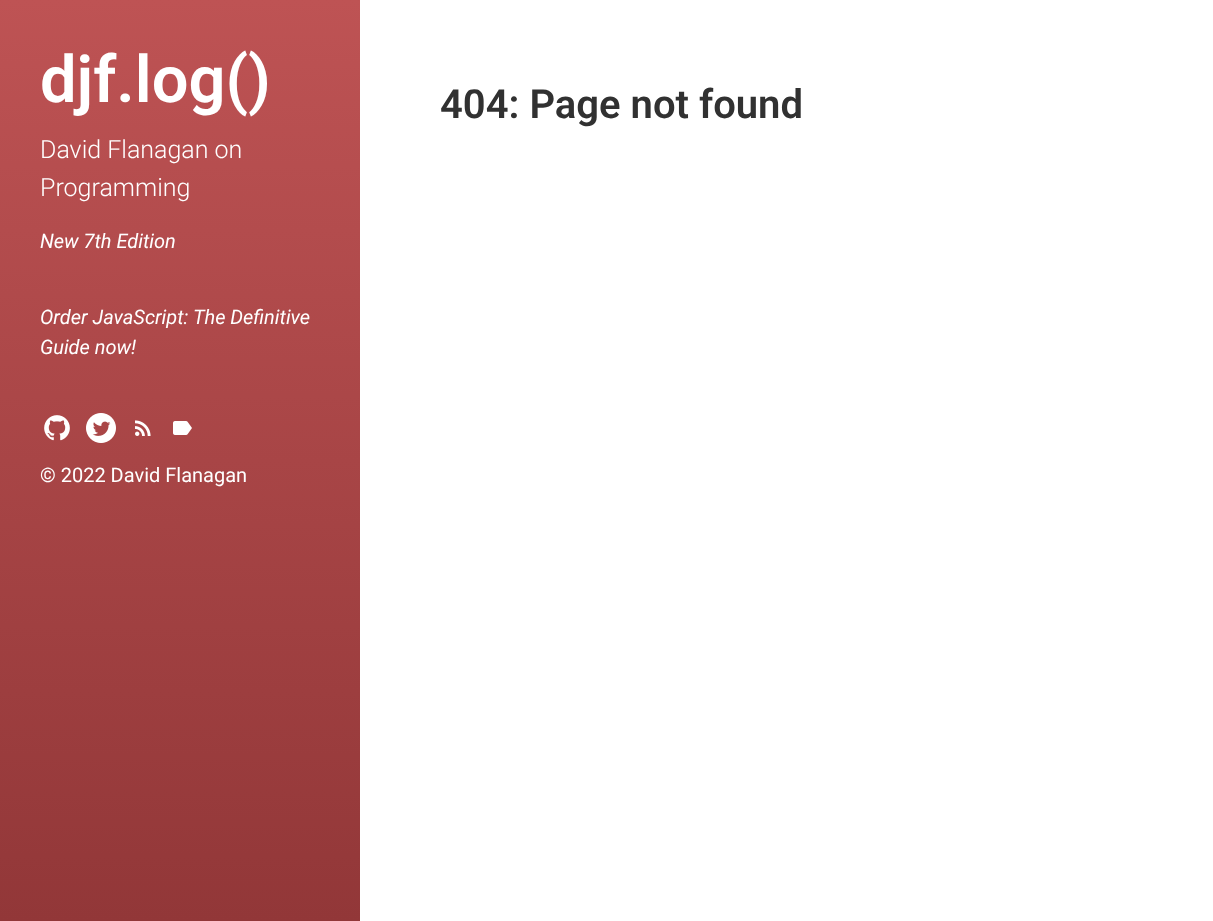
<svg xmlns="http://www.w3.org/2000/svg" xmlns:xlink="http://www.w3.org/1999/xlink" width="1213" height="921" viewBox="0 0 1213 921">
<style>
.cls-1{font:600 65px Roboto;fill:#ffffff}
.cls-2{font:300 25px Roboto;fill:#ffffff}
.cls-3{font:italic 20px Roboto;fill:#ffffff}
.cls-4{font:20px Roboto;fill:#ffffff}
.cls-5{font:600 40px Roboto;fill:#313131}
</style>
<defs>
<linearGradient id="g1" gradientUnits="userSpaceOnUse" x1="607" y1="0" x2="607" y2="921"><stop offset="0" stop-color="#be5354"/><stop offset="1" stop-color="#923738"/></linearGradient>
</defs>
<rect width="100%" height="100%" fill="#ffffff"/>
<rect fill="url(#g1)" x="0" y="0" width="360" height="921"/>
<image xlink:href="image0.png" x="44" y="415" width="26" height="26"/>
<image xlink:href="image1.png" x="86" y="413" width="30" height="30"/>
<image xlink:href="image2.png" x="135" y="420" width="16" height="16"/>
<image xlink:href="image3.png" x="173" y="421" width="19" height="14"/>
<text class="cls-1" x="40" y="102">djf.log()</text>
<text class="cls-2"><tspan x="40" y="158">David Flanagan on</tspan><tspan x="40" y="196">Programming</tspan></text>
<text class="cls-3" x="40" y="248">New 7th Edition</text>
<text class="cls-3"><tspan x="40" y="324">Order JavaScript: The Definitive</tspan><tspan x="40" y="354">Guide now!</tspan></text>
<text class="cls-4" x="40" y="482">© 2022 David Flanagan</text>
<text class="cls-5" x="440" y="118">404: Page not found</text>
</svg>
